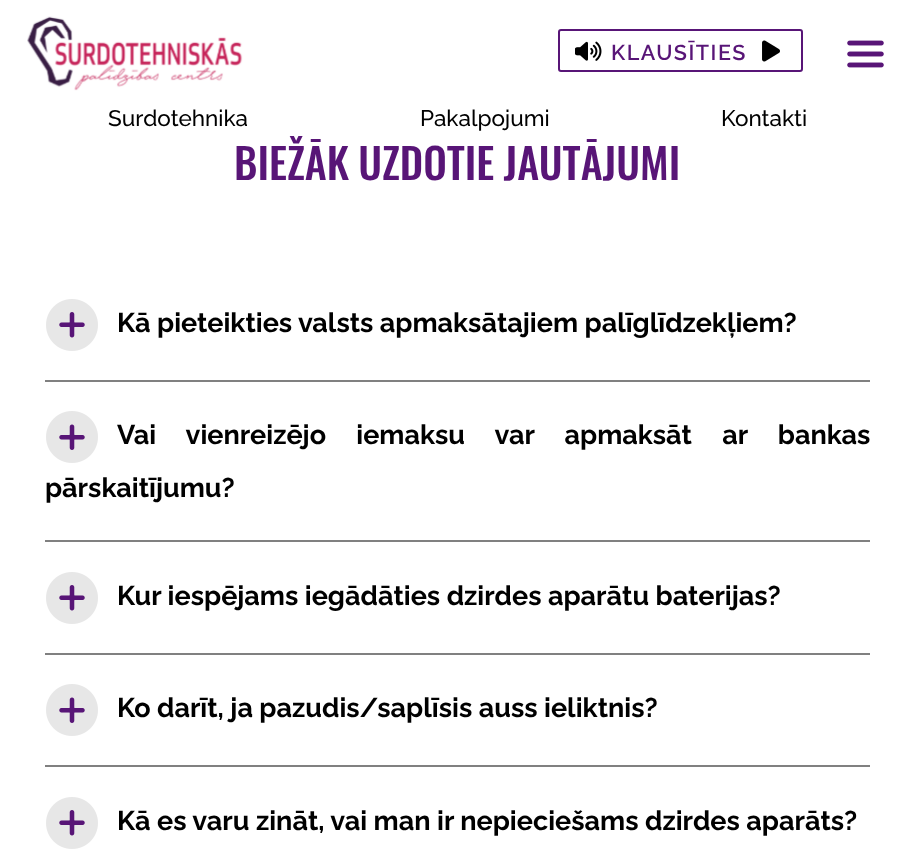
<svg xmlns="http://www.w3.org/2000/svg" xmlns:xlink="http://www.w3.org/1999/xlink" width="914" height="860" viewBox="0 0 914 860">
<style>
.cls-1{font:600 21.5px Raleway;letter-spacing:1.5px;fill:#581577}
.cls-2{font:500 22.5px Raleway;fill:#000000}
.cls-3{font:500 42px Oswald;fill:#581577}
.cls-4{font:bold 27px Raleway;fill:#000000}
</style>
<rect width="100%" height="100%" fill="#ffffff"/>
<image xlink:href="image0.png" x="27" y="16" width="216" height="75"/>
<rect fill="none" stroke="#581577" stroke-width="2" x="559" y="30" width="243" height="41" rx="2"/>
<image xlink:href="image1.png" x="575" y="41" width="27" height="20"/>
<image xlink:href="image2.png" x="762" y="40" width="18" height="22"/>
<image xlink:href="image3.png" x="847" y="40" width="37" height="28"/>
<rect fill="#808080" x="45" y="380" width="825" height="2"/>
<image xlink:href="image4.png" x="46" y="299" width="52" height="52"/>
<rect fill="#808080" x="45" y="540" width="825" height="2"/>
<image xlink:href="image5.png" x="46" y="411" width="52" height="52"/>
<rect fill="#808080" x="45" y="653" width="825" height="2"/>
<image xlink:href="image4.png" x="46" y="572" width="52" height="52"/>
<rect fill="#808080" x="45" y="765" width="825" height="2"/>
<image xlink:href="image5.png" x="46" y="684" width="52" height="52"/>
<image xlink:href="image4.png" x="46" y="797" width="52" height="52"/>
<text class="cls-1" x="611" y="60">KLAUSĪTIES</text>
<text class="cls-2" x="108" y="126">Surdotehnika</text>
<text class="cls-2" x="420" y="126">Pakalpojumi</text>
<text class="cls-2" x="721" y="126">Kontakti</text>
<text class="cls-3" x="234" y="180" word-spacing="-1">BIEŽĀK UZDOTIE JAUTĀJUMI</text>
<text class="cls-4" x="117" y="332">Kā pieteikties valsts apmaksātajiem palīglīdzekļiem?</text>
<text class="cls-4" x="117" y="444" word-spacing="23.75">Vai vienreizējo iemaksu var apmaksāt ar bankas</text>
<text class="cls-4" x="45" y="497">pārskaitījumu?</text>
<text class="cls-4" x="117" y="605">Kur iespējams iegādāties dzirdes aparātu baterijas?</text>
<text class="cls-4" x="117" y="717">Ko darīt, ja pazudis/saplīsis auss ieliktnis?</text>
<text class="cls-4" x="117" y="830">Kā es varu zināt, vai man ir nepieciešams dzirdes aparāts?</text>
</svg>
